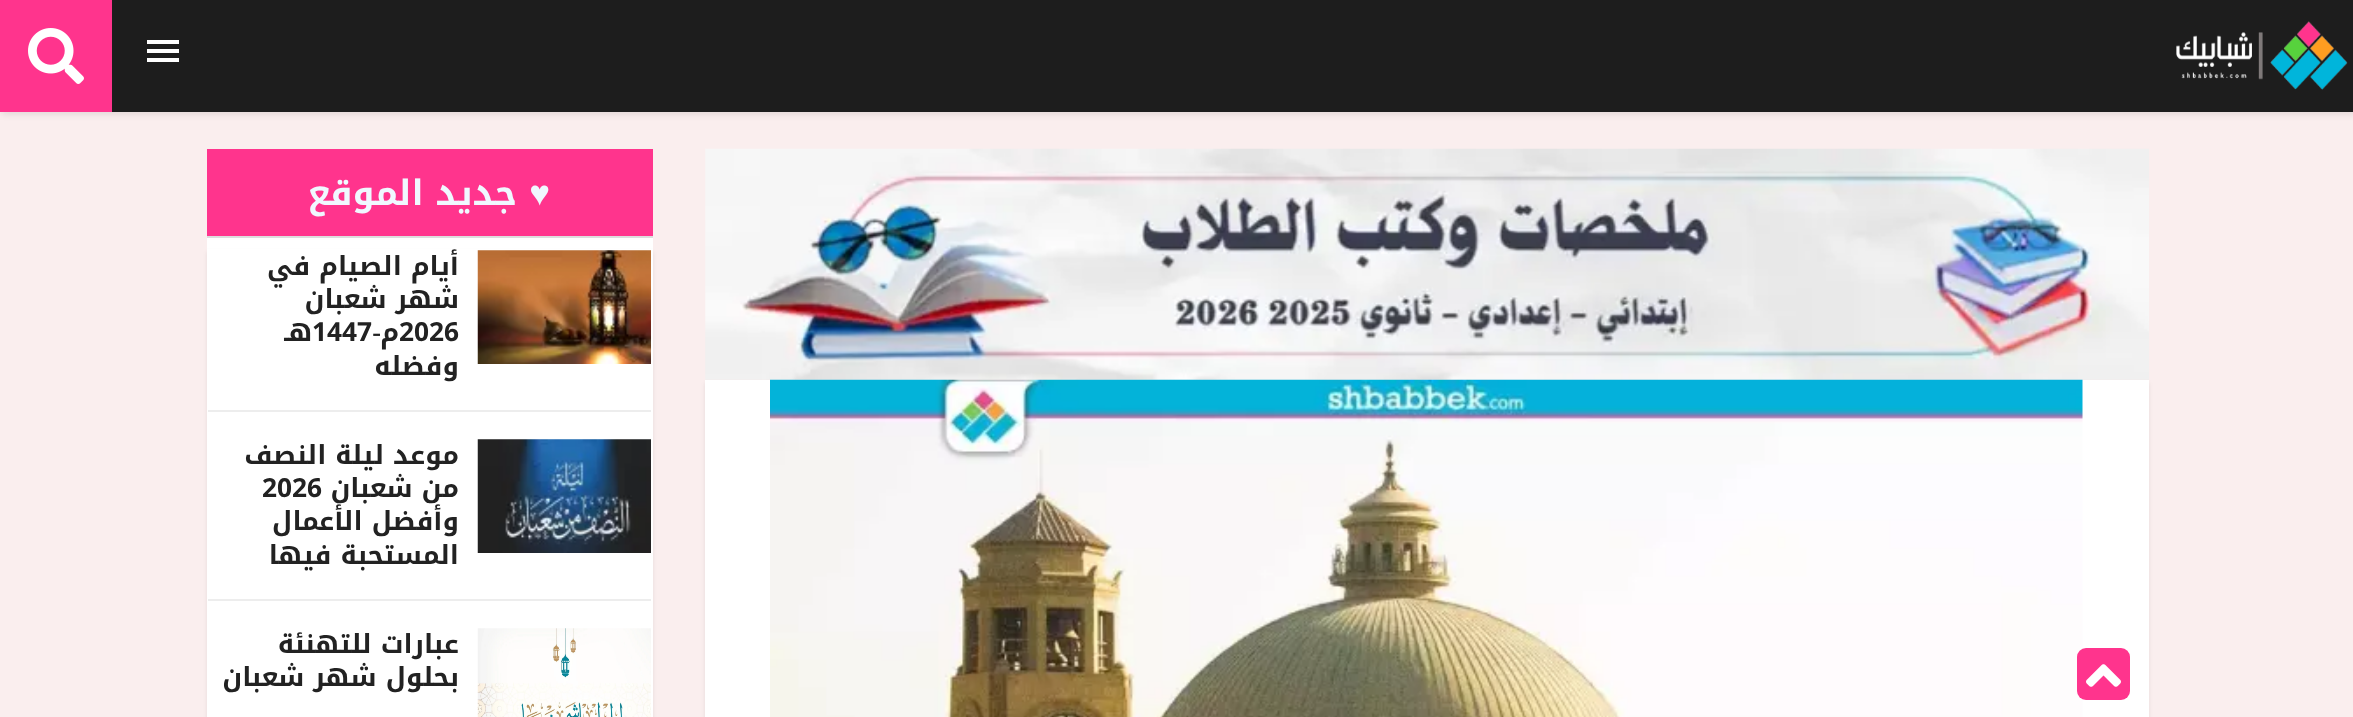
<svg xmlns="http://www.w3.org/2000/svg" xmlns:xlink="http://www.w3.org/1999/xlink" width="2353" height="717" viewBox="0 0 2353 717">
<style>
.cls-1{font:35px Liberation Serif;direction:rtl;fill:#f0f8ff}
.cls-2{font:bold 35px Noto Kufi Arabic;direction:rtl;fill:#f0f8ff}
.cls-3{font:bold 26.25px Noto Kufi Arabic;direction:rtl;fill:#222222}
.cls-4{font:bold 26.25px Noto Kufi Arabic;fill:#222222}
.cls-5{font:bold 26.25px Liberation Serif;direction:rtl;fill:#222222}
</style>
<rect width="100%" height="100%" fill="#faeeee"/>
<rect fill="#000000" fill-opacity="0.1" filter="blur(3.5px)" x="2" y="2" width="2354" height="112"/>
<rect fill="#1d1d1d" x="112" y="0" width="2241" height="112"/>
<image xlink:href="image0.png" x="2176" y="21" width="172" height="69"/>
<rect fill="#ffffff" x="147" y="49" width="32" height="4"/>
<rect fill="#ffffff" x="147" y="40" width="32" height="4"/>
<rect fill="#ffffff" x="147" y="58" width="32" height="4"/>
<rect fill="#ff348d" x="0" y="0" width="112" height="112"/>
<image xlink:href="image1.png" x="28" y="28" width="56" height="56"/>
<image xlink:href="image3.png" x="705" y="148" width="1444" height="232"/>
<rect fill="#000000" fill-opacity="0.08" filter="blur(2px)" x="705" y="383" width="1444" height="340"/>
<rect fill="#ffffff" x="705" y="380" width="1444" height="337"/>
<image xlink:href="image4.png" x="770" y="379" width="1313" height="338"/>
<rect fill="#ff348d" x="2077" y="648" width="53" height="52" rx="9"/>
<image xlink:href="image2.png" x="2086" y="664" width="35" height="23"/>
<rect fill="#ffffff" x="207" y="238" width="446" height="11"/>
<rect fill="#dddddd" x="207" y="236" width="446" height="2"/>
<rect fill="#ff348d" x="207" y="149" width="446" height="87"/>
<rect fill="#000000" fill-opacity="0.08" filter="blur(2px)" x="207" y="252" width="446" height="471"/>
<rect fill="#ffffff" x="207" y="249" width="446" height="468"/>
<rect fill="#ededed" x="208" y="410" width="443" height="2"/>
<image xlink:href="image5.png" x="477" y="250" width="174" height="114"/>
<rect fill="#ededed" x="208" y="599" width="443" height="2"/>
<image xlink:href="image6.png" x="477" y="439" width="174" height="114"/>
<image xlink:href="image7.png" x="477" y="628" width="174" height="89"/>
<text class="cls-1" x="550" y="205">♥</text>
<text class="cls-2" x="517" y="205">جديد الموقع</text>
<text class="cls-3"><tspan x="459" y="275">أيام الصيام في</tspan><tspan x="459" y="308">شهر شعبان</tspan></text>
<text class="cls-4" x="399" y="341">2026</text>
<text class="cls-3" x="399" y="341">م</text>
<text class="cls-5" x="381" y="341">-</text>
<text class="cls-4" x="312" y="341">1447</text>
<text class="cls-3" x="312" y="341">هـ</text>
<text class="cls-3" x="459" y="375">وفضله</text>
<text class="cls-3"><tspan x="459" y="464">موعد ليلة النصف</tspan><tspan x="459" y="497">من شعبان</tspan></text>
<text class="cls-4" x="262" y="497">2026</text>
<text class="cls-3"><tspan x="459" y="530">وأفضل الأعمال</tspan><tspan x="459" y="564">المستحبة فيها</tspan></text>
<text class="cls-3"><tspan x="459" y="653">عبارات للتهنئة</tspan><tspan x="459" y="686">بحلول شهر شعبان</tspan></text>
</svg>
